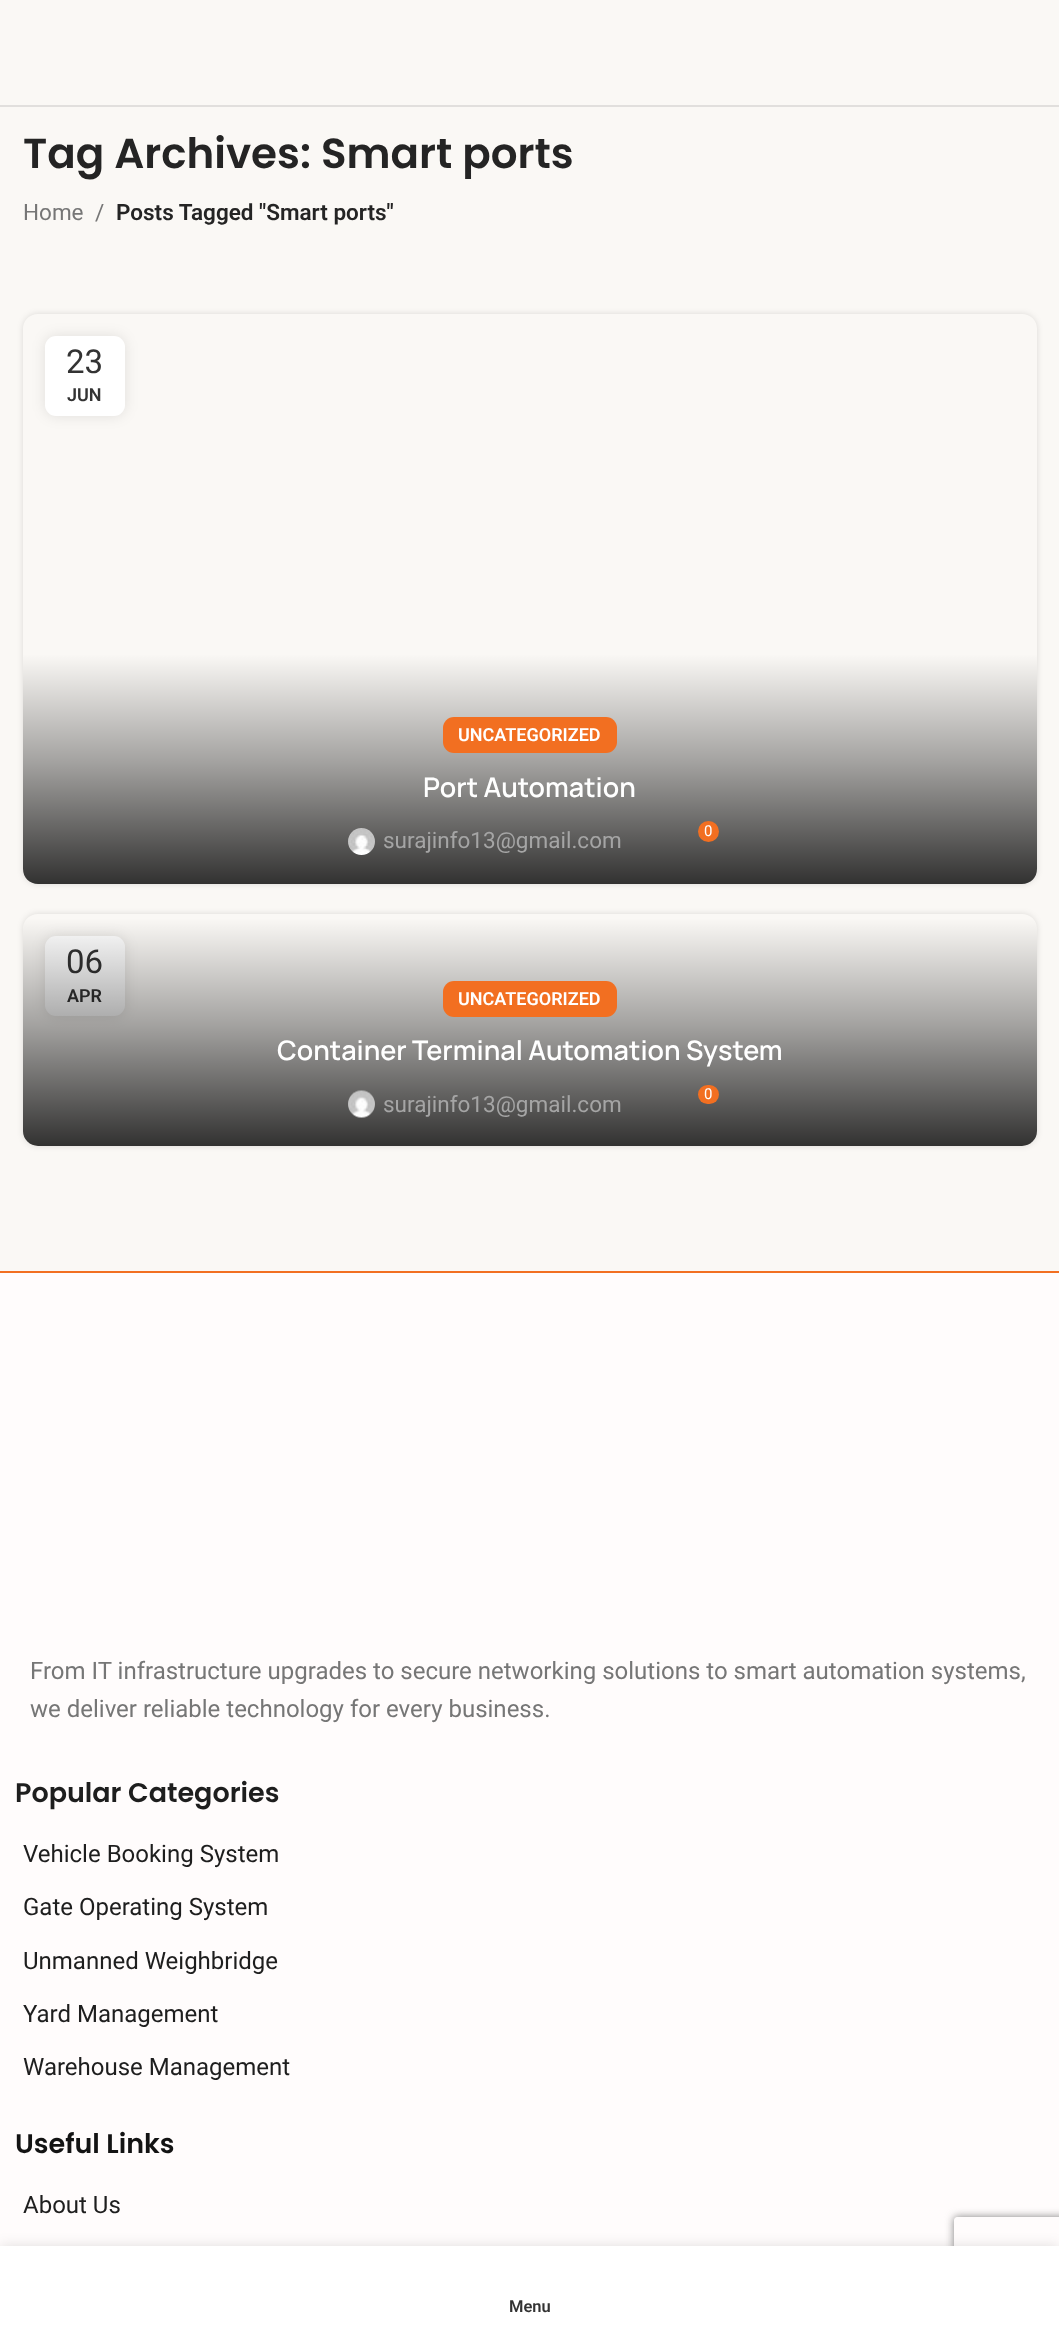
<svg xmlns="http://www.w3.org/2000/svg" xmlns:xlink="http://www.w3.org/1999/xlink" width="1059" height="2328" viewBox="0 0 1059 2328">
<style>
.cls-1{font:600 42px Poppins;fill:#242424}
.cls-2{font:22.5px Roboto;fill:#767676}
.cls-3{font:600 22.5px Roboto;fill:#242424}
.cls-4{font:33px Roboto;fill:#333333}
.cls-5{font:600 18px Roboto;fill:#333333}
.cls-6{font:600 18px Roboto;fill:#ffffff}
.cls-7{font:600 27px Manrope;fill:#ffffff}
.cls-8{font:22.5px Roboto;fill:#a5a5a5}
.cls-9{font:15px Roboto;fill:#ffffff}
.cls-10{font:24px Roboto;fill:#767676}
.cls-11{font:600 27px Poppins;fill:#1e1e1e}
.cls-12{font:24px Roboto;fill:#1e1e1e}
.cls-13{font:600 27px Poppins;fill:#131313}
.cls-14{font:600 16.5px Roboto;fill:#333333}
</style>
<defs>
<clipPath id="clip1"><path d="M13 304H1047V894H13ZM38 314H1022C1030.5 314 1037 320.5 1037 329V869C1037 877.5 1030.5 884 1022 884H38C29.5 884 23 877.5 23 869V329C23 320.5 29.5 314 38 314Z" clip-rule="evenodd"/></clipPath>
<linearGradient id="g1" gradientUnits="userSpaceOnUse" x1="530" y1="642" x2="530" y2="884"><stop offset="0.05" stop-color="#000000" stop-opacity="0"/><stop offset="0.5" stop-color="#000000" stop-opacity="0.35"/><stop offset="1" stop-color="#000000" stop-opacity="0.8"/></linearGradient>
<clipPath id="clip2"><path d="M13 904H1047V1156H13ZM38 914H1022C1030.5 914 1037 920.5 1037 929V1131C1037 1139.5 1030.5 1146 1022 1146H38C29.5 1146 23 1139.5 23 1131V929C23 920.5 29.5 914 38 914Z" clip-rule="evenodd"/></clipPath>
<clipPath id="clip3"><path d="M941 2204H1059V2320H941ZM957 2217H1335C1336.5 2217 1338 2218.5 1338 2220V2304C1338 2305.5 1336.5 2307 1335 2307H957C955.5 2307 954 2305.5 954 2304V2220C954 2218.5 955.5 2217 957 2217Z" clip-rule="evenodd"/></clipPath>
<linearGradient id="g2" gradientUnits="userSpaceOnUse" x1="530" y1="906" x2="530" y2="1146"><stop offset="0.05" stop-color="#000000" stop-opacity="0"/><stop offset="0.5" stop-color="#000000" stop-opacity="0.35"/><stop offset="1" stop-color="#000000" stop-opacity="0.8"/></linearGradient>
</defs>
<rect width="100%" height="100%" fill="#faf8f5"/>
<rect fill="#e1dfdd" x="0" y="105" width="1059" height="2"/>
<g clip-path="url(#clip1)">
<rect fill="#000000" fill-opacity="0.12" filter="blur(3px)" x="23" y="314" width="1014" height="570" rx="15"/>
</g>
<rect fill="#000000" fill-opacity="0.1" filter="blur(7px)" x="45" y="336" width="80" height="80" rx="11"/>
<rect fill="#ffffff" x="45" y="336" width="80" height="80" rx="11"/>
<path fill="url(#g1)" d="M23 642H1037V869C1037 877.5 1030.5 884 1022 884H38C29.5 884 23 877.5 23 869Z"/>
<rect fill="#f26f21" x="443" y="717" width="174" height="36" rx="11"/>
<image xlink:href="image0.png" x="348" y="828" width="27" height="27"/>
<circle fill="#f26f21" cx="708.5" cy="831.5" r="10.5"/>
<g clip-path="url(#clip2)">
<rect fill="#000000" fill-opacity="0.12" filter="blur(3px)" x="23" y="914" width="1014" height="232" rx="15"/>
</g>
<rect fill="#000000" fill-opacity="0.1" filter="blur(7px)" x="45" y="936" width="80" height="80" rx="11"/>
<rect fill="#ffffff" x="45" y="936" width="80" height="80" rx="11"/>
<rect fill="#fffcfc" x="0" y="1273" width="1059" height="973"/>
<rect fill="#f26f21" x="0" y="1271" width="1059" height="2"/>
<rect fill="#000000" fill-opacity="0.12" filter="blur(7px)" x="0" y="2246" width="1059" height="82"/>
<g clip-path="url(#clip3)">
<rect fill="#808080" filter="blur(4px)" x="954" y="2217" width="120" height="90" rx="3"/>
</g>
<rect fill="#ffffff" x="0" y="2246" width="1059" height="82"/>
<text class="cls-1" x="23" y="168">Tag Archives: Smart ports</text>
<text class="cls-2" x="23" y="220">Home</text>
<text class="cls-2" x="95" y="220">/</text>
<text class="cls-3" x="116" y="220">Posts Tagged "Smart ports"</text>
<text class="cls-4" x="66" y="373">23</text>
<text class="cls-5" x="67" y="401">JUN</text>
<text class="cls-6" x="458" y="741">UNCATEGORIZED</text>
<text class="cls-7" x="423" y="797">Port Automation</text>
<text class="cls-8" x="383" y="848">surajinfo13@gmail.com</text>
<text class="cls-9" x="704" y="836">0</text>
<text class="cls-4" x="66" y="973">06</text>
<text class="cls-5" x="67" y="1002">APR</text>
<rect fill="url(#g2)" x="23" y="914" width="1014" height="232" rx="15"/>
<rect fill="#f26f21" x="443" y="981" width="174" height="36" rx="11"/>
<text class="cls-6" x="458" y="1005">UNCATEGORIZED</text>
<text class="cls-7" x="277" y="1060">Container Terminal Automation System</text>
<image xlink:href="image1.png" x="348" y="1090" width="27" height="28"/>
<text class="cls-8" x="383" y="1112">surajinfo13@gmail.com</text>
<rect fill="#f26f21" x="698" y="1085" width="21" height="19" rx="9.5"/>
<text class="cls-9" x="704" y="1099">0</text>
<text class="cls-10"><tspan x="30" y="1679">From IT infrastructure upgrades to secure networking solutions to smart automation systems,</tspan><tspan x="30" y="1717">we deliver reliable technology for every business.</tspan></text>
<text class="cls-11" x="15" y="1802">Popular Categories</text>
<text class="cls-12" x="23" y="1862">Vehicle Booking System</text>
<text class="cls-12" x="23" y="1915">Gate Operating System</text>
<text class="cls-12" x="23" y="1969">Unmanned Weighbridge</text>
<text class="cls-12" x="23" y="2022">Yard Management</text>
<text class="cls-12" x="23" y="2075">Warehouse Management</text>
<text class="cls-13" x="15" y="2153">Useful Links</text>
<text class="cls-12" x="23" y="2213">About Us</text>
<text class="cls-14" x="509" y="2312">Menu</text>
</svg>
